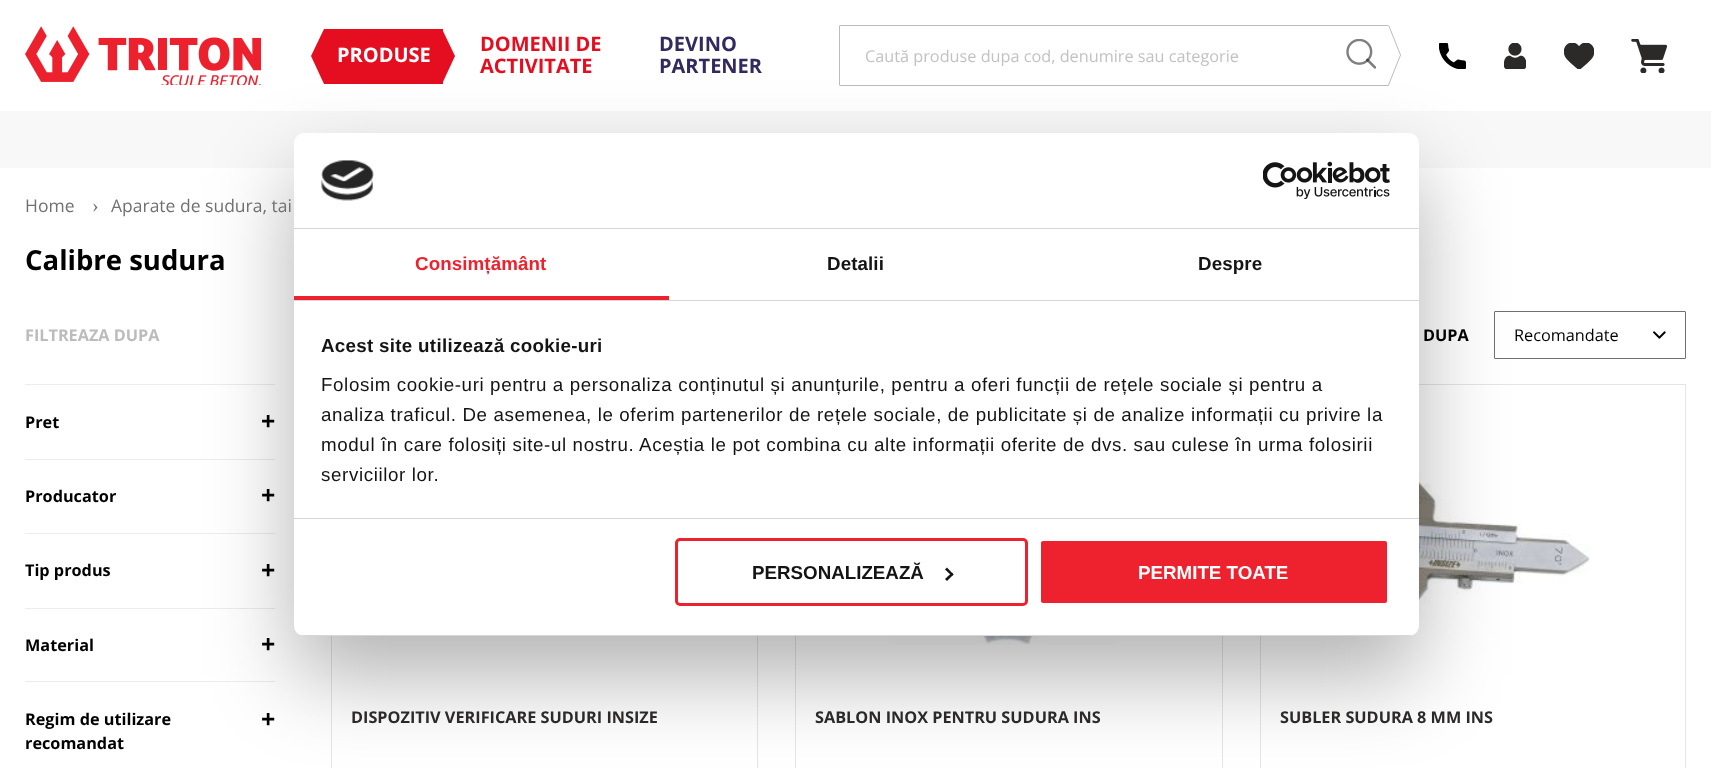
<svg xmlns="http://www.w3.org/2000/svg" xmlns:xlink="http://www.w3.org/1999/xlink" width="1711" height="768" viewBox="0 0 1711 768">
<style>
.cls-1{font:bold 20px Open Sans;fill:#ffffff}
.cls-2{font:bold 20px Open Sans;fill:#e40e20}
.cls-3{font:bold 20px Open Sans;fill:#322a5f}
.cls-4{font:16.25px Open Sans;fill:#c2c2c2}
.cls-5{font:17.5px Open Sans;fill:#717171}
.cls-6{font:20px Liberation Serif;fill:#717171}
.cls-7{font:bold 27.5px Open Sans;fill:#000000}
.cls-8{font:bold 16.25px Open Sans;fill:#bcbcbc}
.cls-9{font:bold 16.25px Open Sans;fill:#000000}
.cls-10{font:bold 25px Open Sans;fill:#000000}
.cls-11{font:16.25px Open Sans;fill:#000000}
.cls-12{font:bold 16.25px Open Sans;fill:#2b2a29}
.cls-13{font:bold 18.75px Liberation Sans;letter-spacing:0.1px;fill:#ed222e}
.cls-14{font:bold 18.75px Liberation Sans;letter-spacing:0.1px;fill:#141414}
.cls-15{font:bold 18.75px Liberation Sans;letter-spacing:0.3px;fill:#141414}
.cls-16{font:18.75px Liberation Sans;letter-spacing:0.62px;fill:#141414}
.cls-17{font:bold 18.75px Liberation Sans;fill:#141414}
.cls-18{font:bold 18.75px Liberation Sans;fill:#ffffff}
</style>
<defs>
<clipPath id="clip1"><rect x="294" y="133" width="1125" height="503" rx="10"/></clipPath>
</defs>
<rect width="100%" height="100%" fill="#ffffff"/>
<image xlink:href="image0.png" x="25" y="26" width="236" height="59"/>
<rect fill="#e40e20" x="324" y="29" width="119" height="55"/>
<path fill="#e40e20" d="M324 29V84L311 56Z"/>
<path fill="#e40e20" d="M442 84V29L455 56Z"/>
<rect fill="none" stroke="#bcbcbc" x="839.5" y="25.5" width="549" height="60" rx="0.5"/>
<path fill="#bcbcbc" d="M1389 85V25L1401 55Z"/>
<path fill="#ffffff" d="M1388 85V25L1400 55Z"/>
<image xlink:href="image1.png" x="1346" y="39" width="30" height="30"/>
<image xlink:href="image2.png" x="1439" y="43" width="27" height="26"/>
<image xlink:href="image3.png" x="1504" y="43" width="22" height="26"/>
<image xlink:href="image4.png" x="1564" y="43" width="30" height="26"/>
<image xlink:href="image5.png" x="1631" y="39" width="37" height="34"/>
<rect fill="#f8f8f8" x="0" y="111" width="1711" height="57"/>
<rect fill="#ececec" x="25" y="384" width="250" height="1"/>
<rect fill="#ececec" x="25" y="459" width="250" height="1"/>
<rect fill="#ececec" x="25" y="533" width="250" height="1"/>
<rect fill="#ececec" x="25" y="608" width="250" height="1"/>
<rect fill="#ececec" x="25" y="681" width="250" height="1"/>
<image xlink:href="image6.png" x="1653" y="331" width="13" height="8"/>
<rect fill="none" stroke="#707070" x="1494.5" y="311.5" width="191" height="47" rx="0.5"/>
<rect fill="none" stroke="#e5e5e5" x="331.5" y="384.5" width="426" height="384"/>
<rect fill="none" stroke="#e5e5e5" x="795.5" y="384.5" width="427" height="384"/>
<image xlink:href="image7.png" x="887" y="636" width="231" height="9"/>
<rect fill="none" stroke="#e5e5e5" x="1260.5" y="384.5" width="425" height="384"/>
<image xlink:href="image8.png" x="1419" y="473" width="172" height="151"/>
<rect fill="#000000" fill-opacity="0.3" filter="blur(42.5px)" x="294" y="173" width="1125" height="503" rx="10"/>
<rect fill="#ffffff" x="294" y="133" width="1125" height="503" rx="10"/>
<rect fill="#d6d6d6" x="294" y="228" width="1125" height="1"/>
<image xlink:href="image9.png" x="321" y="160" width="53" height="41"/>
<image xlink:href="image10.png" x="1263" y="161" width="127" height="38"/>
<rect fill="#d6d6d6" x="294" y="300" width="1125" height="1"/>
<rect fill="#ed222e" x="294" y="296" width="375" height="4"/>
<rect fill="#d6d6d6" x="294" y="518" width="1125" height="1"/>
<g clip-path="url(#clip1)">
<rect fill="#d6d6d6" x="294" y="635" width="1125" height="1"/>
</g>
<rect fill="none" stroke="#ed222e" stroke-width="3" x="676.5" y="539.5" width="350" height="65" rx="3.5"/>
<path fill="#141414" d="M947 567.5L953.5 574.5L952 576L945 569.5Z"/>
<path fill="#141414" d="M952 572.5L953.5 574.5L947 581L945 579Z"/>
<rect fill="#ed222e" stroke="#ffffff" stroke-width="3" x="1039.5" y="539.5" width="349" height="65" rx="3.5"/>
<text class="cls-1" x="337" y="62">PRODUSE</text>
<text class="cls-2"><tspan x="480" y="51">DOMENII DE</tspan><tspan x="480" y="73">ACTIVITATE</tspan></text>
<text class="cls-3"><tspan x="659" y="51">DEVINO</tspan><tspan x="659" y="73">PARTENER</tspan></text>
<text class="cls-4" x="865" y="62">Caută produse dupa cod, denumire sau categorie</text>
<text class="cls-5" x="25" y="212">Home</text>
<text class="cls-6" x="92" y="212">›</text>
<text class="cls-5" x="111" y="212">Aparate de sudura, tai</text>
<text class="cls-7" x="25" y="270">Calibre sudura</text>
<text class="cls-8" x="25" y="341">FILTREAZA DUPA</text>
<text class="cls-9" x="25" y="428">Pret</text>
<text class="cls-10" x="261" y="430">+</text>
<text class="cls-9" x="25" y="502">Producator</text>
<text class="cls-10" x="261" y="504">+</text>
<text class="cls-9" x="25" y="576">Tip produs</text>
<text class="cls-10" x="261" y="579">+</text>
<text class="cls-9" x="25" y="651">Material</text>
<text class="cls-10" x="261" y="653">+</text>
<text class="cls-9" x="25" y="725">Regim de utilizare</text>
<text class="cls-10" x="261" y="728">+</text>
<text class="cls-9" x="25" y="749">recomandat</text>
<text class="cls-9" x="1423" y="341">DUPA</text>
<text class="cls-11" x="1514" y="341">Recomandate</text>
<text class="cls-12" x="351" y="723">DISPOZITIV VERIFICARE SUDURI INSIZE</text>
<text class="cls-12" x="815" y="723">SABLON INOX PENTRU SUDURA INS</text>
<text class="cls-12" x="1280" y="723">SUBLER SUDURA 8 MM INS</text>
<text class="cls-13" x="415" y="270">Consimțământ</text>
<text class="cls-14" x="827" y="270">Detalii</text>
<text class="cls-14" x="1198" y="270">Despre</text>
<text class="cls-15" x="321" y="352">Acest site utilizează cookie-uri</text>
<text class="cls-16"><tspan x="321" y="391">Folosim cookie-uri pentru a personaliza conținutul și anunțurile, pentru a oferi funcții de rețele sociale și pentru a</tspan><tspan x="321" y="421">analiza traficul. De asemenea, le oferim partenerilor de rețele sociale, de publicitate și de analize informații cu privire la</tspan><tspan x="321" y="451">modul în care folosiți site-ul nostru. Aceștia le pot combina cu alte informații oferite de dvs. sau culese în urma folosirii</tspan><tspan x="321" y="481">serviciilor lor.</tspan></text>
<text class="cls-17" x="752" y="579">PERSONALIZEAZĂ</text>
<text class="cls-18" x="1138" y="579">PERMITE TOATE</text>
</svg>
